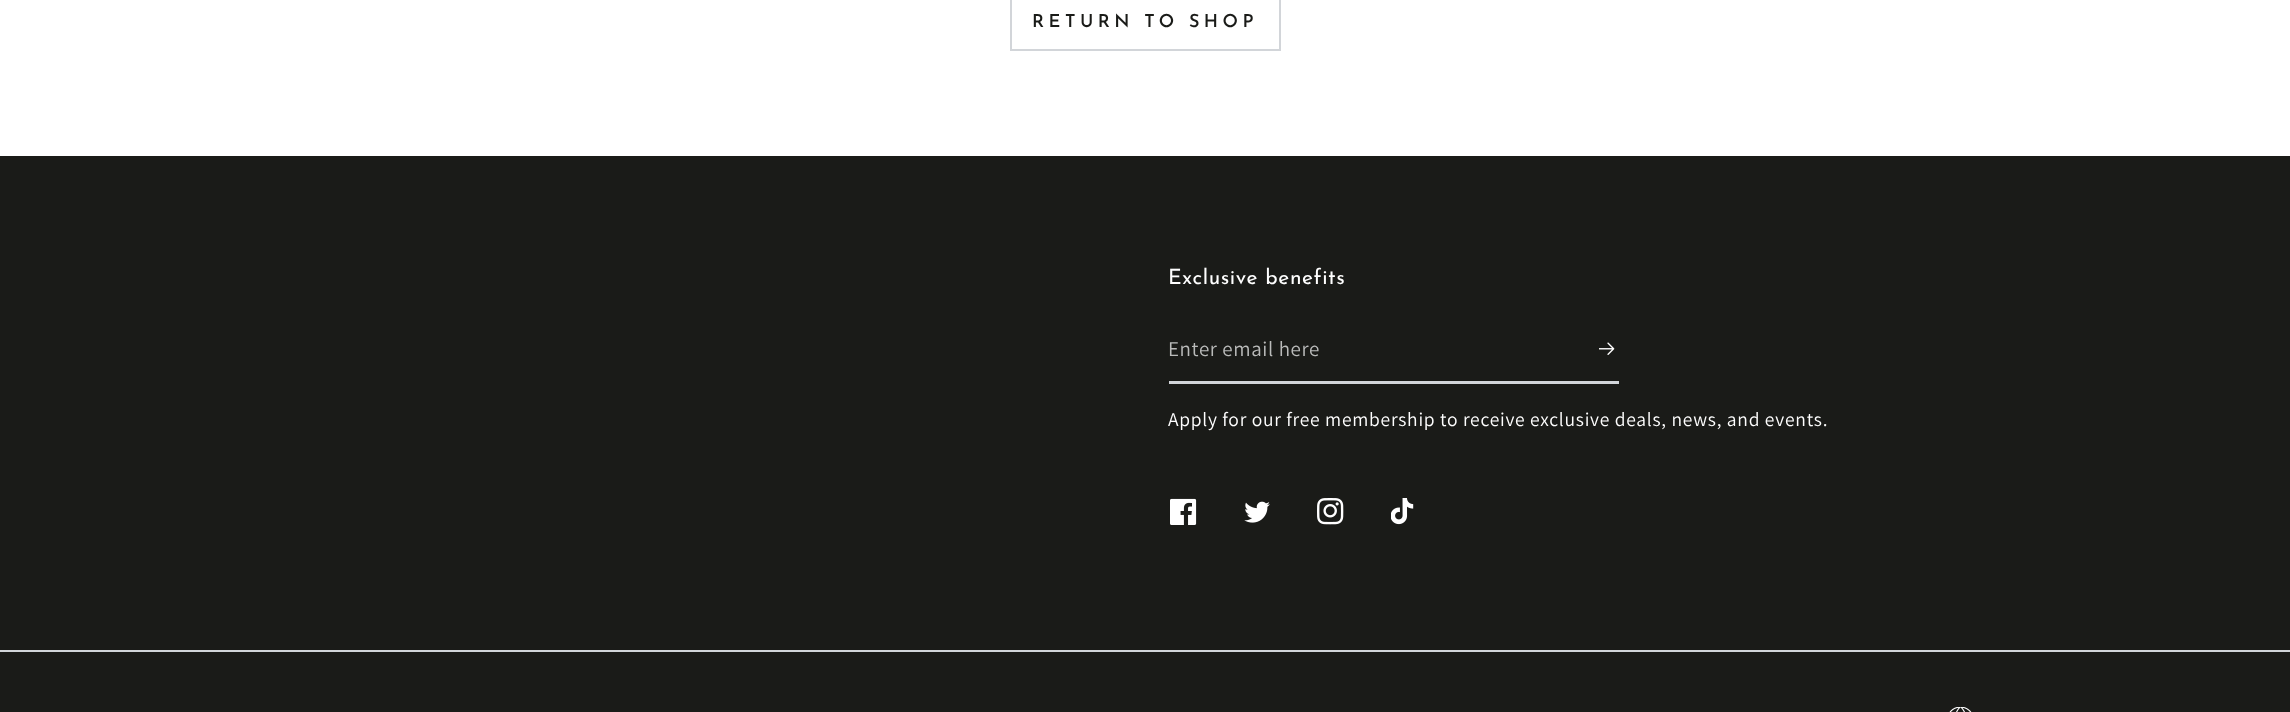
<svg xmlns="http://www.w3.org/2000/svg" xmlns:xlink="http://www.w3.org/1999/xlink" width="2290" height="712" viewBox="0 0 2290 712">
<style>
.cls-1{font:600 18px Josefin Sans;letter-spacing:4.5px;fill:#1a1b18}
.cls-2{font:21px Josefin Sans;letter-spacing:0.6px;fill:#ffffff}
.cls-3{font:21px Assistant;letter-spacing:0.6px;fill:#babbba}
.cls-4{font:19.5px Assistant;letter-spacing:0.75px;fill:#ffffff}
</style>
<rect width="100%" height="100%" fill="#ffffff"/>
<rect fill="none" stroke="#d2d5d9" stroke-width="2" x="1011" y="-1" width="269" height="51"/>
<rect fill="#1a1b18" x="0" y="156" width="2290" height="556"/>
<rect fill="#d2d5d9" x="1169" y="381" width="450" height="3"/>
<image xlink:href="image0.png" x="1599" y="342" width="16" height="13"/>
<image xlink:href="image1.png" x="1170" y="498" width="27" height="27"/>
<image xlink:href="image2.png" x="1244" y="501" width="26" height="22"/>
<image xlink:href="image3.png" x="1317" y="498" width="27" height="27"/>
<image xlink:href="image4.png" x="1391" y="498" width="23" height="27"/>
<rect fill="#d2d5d9" x="0" y="650" width="2290" height="2"/>
<image xlink:href="image5.png" x="1949" y="707" width="23" height="5"/>
<text class="cls-1" x="1032" y="27">RETURN TO SHOP</text>
<text class="cls-2" x="1168" y="284">Exclusive benefits</text>
<text class="cls-3" x="1168" y="356">Enter email here</text>
<text class="cls-4" x="1168" y="426">Apply for our free membership to receive exclusive deals, news, and events.</text>
</svg>
